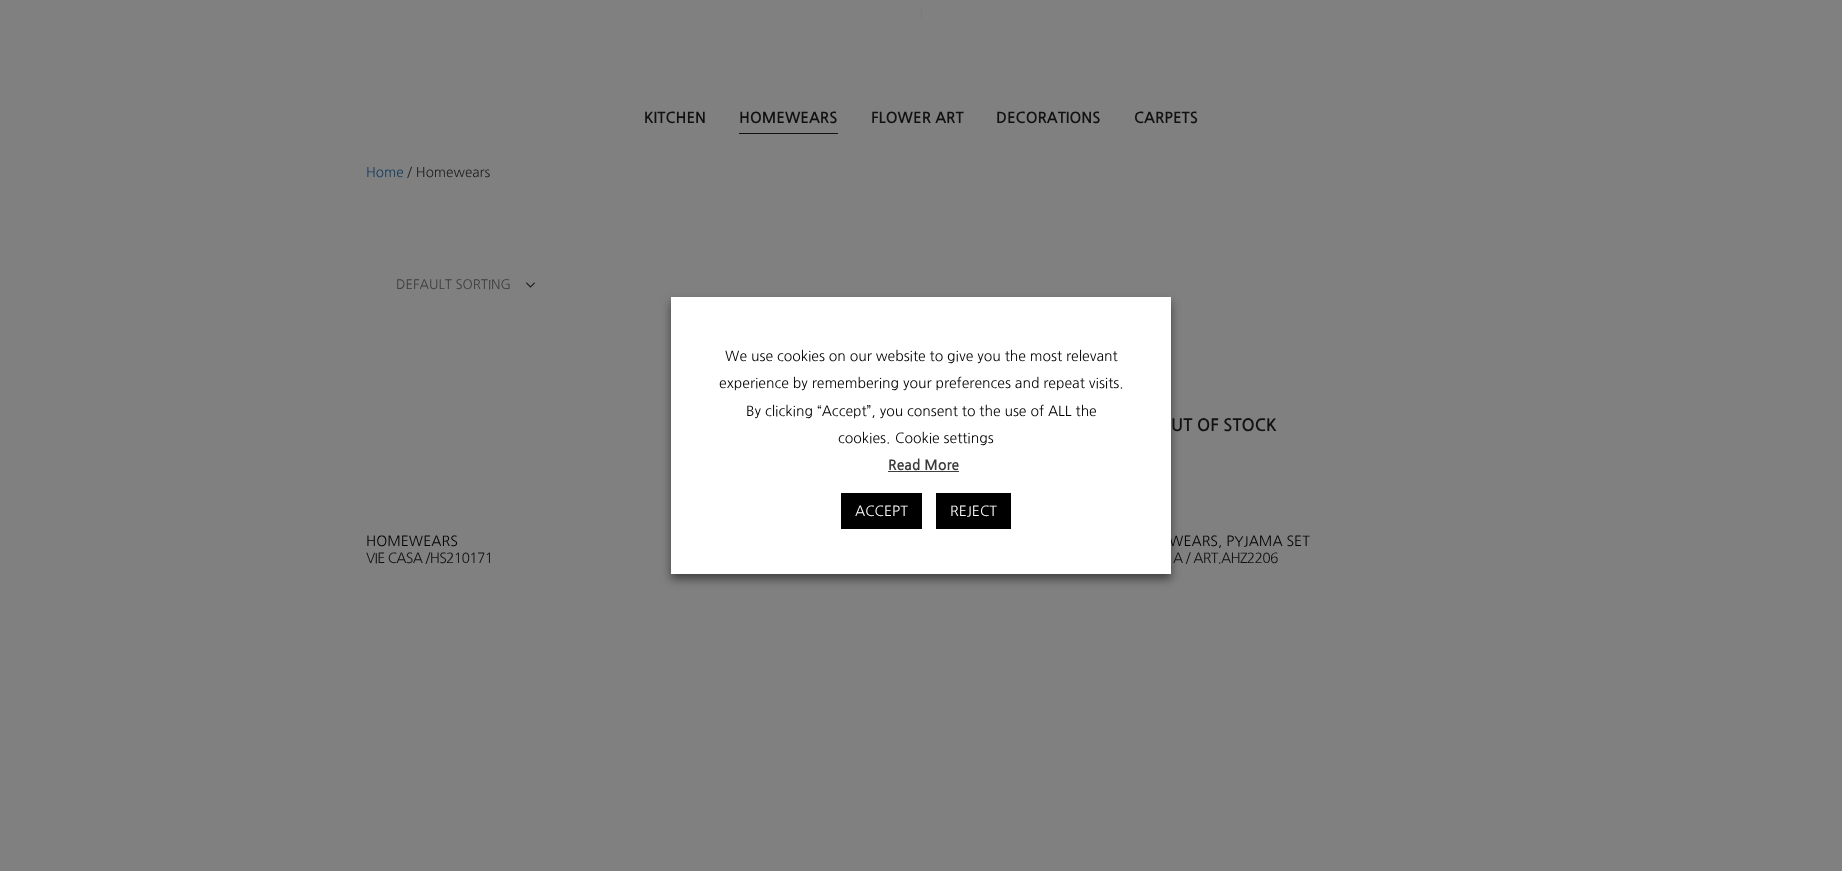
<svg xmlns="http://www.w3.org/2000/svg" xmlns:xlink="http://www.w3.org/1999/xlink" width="1842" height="871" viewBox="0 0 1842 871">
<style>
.cls-1{font:bold 15px NanumGothic;fill:#111111}
.cls-2{font:13.5px NanumGothic;fill:#0f3a5f}
.cls-3{font:13.5px NanumGothic;fill:#1d1d1d}
.cls-4{font:13px NanumGothic;fill:#3c3c3c}
.cls-5{font:14px NanumGothic;fill:#000000}
.cls-6{font:14px NanumGothic;letter-spacing:-0.75px;fill:#111111}
.cls-7{font:bold 16.75px NanumGothic;fill:#111111}
.cls-8{font:bold 14px NanumGothic;fill:#3c3c3c}
.cls-9{font:14px NanumGothic;fill:#ffffff}
</style>
<rect width="100%" height="100%" fill="#808080"/>
<rect fill="#7b7b7b" x="921" y="6" width="1" height="13"/>
<rect fill="#111111" x="739" y="133" width="99" height="1"/>
<image xlink:href="image0.png" x="526" y="282" width="9" height="6"/>
<rect fill="#000000" fill-opacity="0.5" filter="blur(5px)" x="671" y="302" width="500" height="277"/>
<text class="cls-1" x="644" y="123">KITCHEN</text>
<text class="cls-1" x="739" y="123">HOMEWEARS</text>
<text class="cls-1" x="871" y="123">FLOWER ART</text>
<text class="cls-1" x="996" y="123">DECORATIONS</text>
<text class="cls-1" x="1134" y="123">CARPETS</text>
<text class="cls-2" x="366" y="177">Home</text>
<text class="cls-3" x="407" y="177">/ Homewears</text>
<text class="cls-4" x="396" y="289">DEFAULT SORTING</text>
<text class="cls-5" x="366" y="546">HOMEWEARS</text>
<text class="cls-6" x="366" y="563">VIE CASA /HS210171</text>
<text class="cls-7" x="1171" y="431">UT OF STOCK</text>
<text class="cls-5" x="1169" y="546">WEARS, PYJAMA SET</text>
<text class="cls-6" x="1173" y="563">A / ART.AHZ2206</text>
<rect fill="#ffffff" x="671" y="297" width="500" height="277"/>
<text class="cls-5" x="725" y="361">We use cookies on our website to give you the most relevant</text>
<text class="cls-5" x="719" y="388">experience by remembering your preferences and repeat visits.</text>
<text class="cls-5" x="746" y="416">By clicking “Accept”, you consent to the use of ALL the</text>
<text class="cls-5" x="838" y="443">cookies.</text>
<text class="cls-5" x="895" y="443">Cookie settings</text>
<text class="cls-8" x="888" y="470">Read More</text>
<rect fill="#3f3f3f" x="888" y="471" width="71" height="1"/>
<rect fill="#000000" x="841" y="493" width="81" height="36"/>
<text class="cls-9" x="855" y="516">ACCEPT</text>
<rect fill="#000000" x="936" y="493" width="75" height="36"/>
<text class="cls-9" x="950" y="516">REJECT</text>
</svg>
